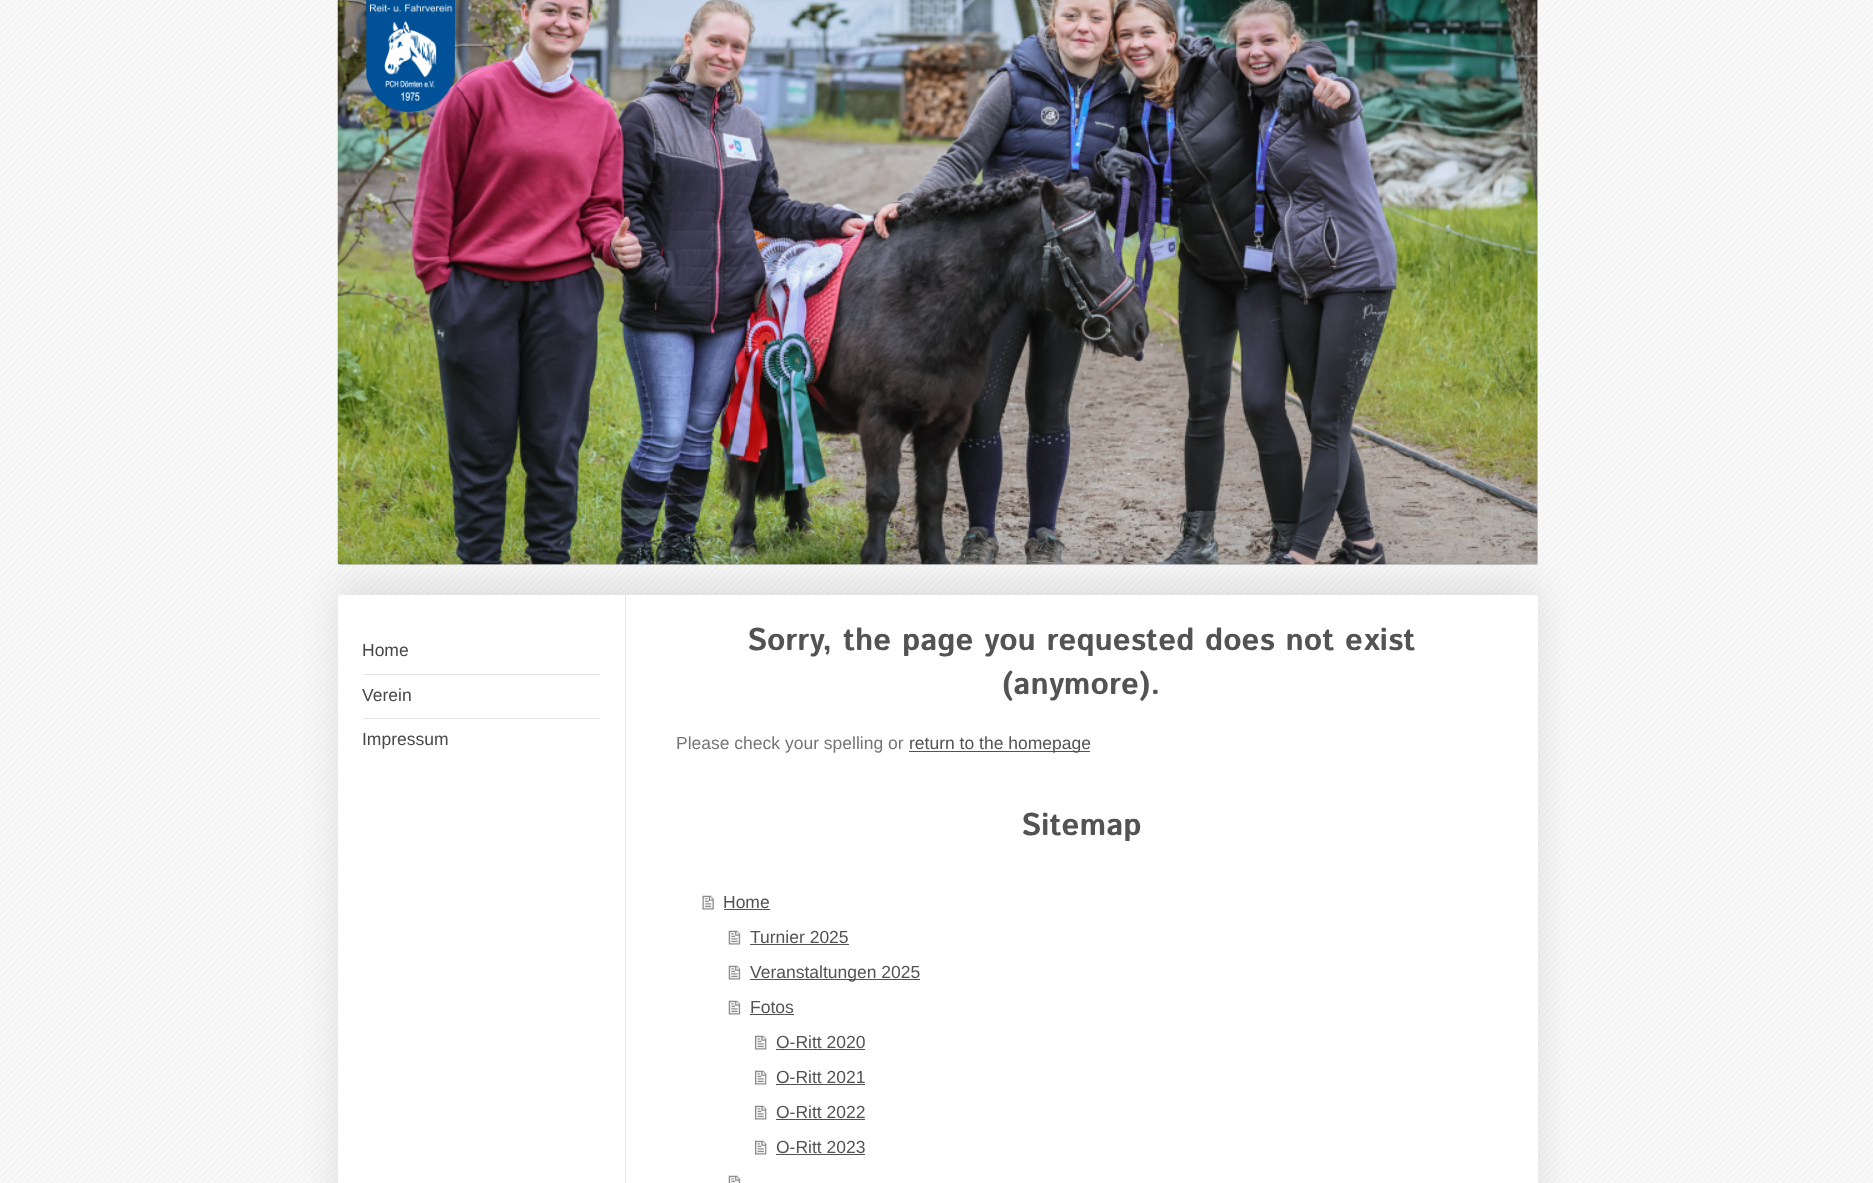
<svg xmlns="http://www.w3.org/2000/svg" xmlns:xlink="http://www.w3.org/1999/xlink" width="1873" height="1183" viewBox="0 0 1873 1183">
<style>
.cls-1{font:17.5px Liberation Sans;fill:#474747}
.cls-2{font:bold 31.25px Istok Web;fill:#535353}
.cls-3{font:17.5px Liberation Sans;fill:#757575}
.cls-4{font:17.5px Liberation Sans;fill:#535353}
</style>
<rect width="100%" height="100%" fill="#f5f5f5"/>
<image xlink:href="image0.png" x="0" y="0" width="1873" height="1183"/>
<rect fill="#cccccc" x="338" y="-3" width="1200" height="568" rx="2.5"/>
<image xlink:href="image1.png" x="337" y="0" width="1201" height="565"/>
<image xlink:href="image2.png" x="366" y="0" width="89" height="112"/>
<rect fill="#000000" fill-opacity="0.1" filter="blur(19px)" x="338" y="583" width="1200" height="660" rx="2.5"/>
<rect fill="#ffffff" x="338" y="595" width="1200" height="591" rx="2.5"/>
<rect fill="#e6e6e6" x="363" y="674" width="237" height="1"/>
<rect fill="#e6e6e6" x="363" y="718" width="237" height="1"/>
<rect fill="#e6e6e6" x="625" y="595" width="1" height="588"/>
<rect fill="#535353" x="909" y="751" width="181" height="1"/>
<image xlink:href="image3.png" x="702" y="895" width="12" height="15"/>
<rect fill="#535353" x="724" y="909" width="46" height="1"/>
<image xlink:href="image4.png" x="728" y="930" width="13" height="15"/>
<rect fill="#535353" x="750" y="944" width="99" height="1"/>
<image xlink:href="image4.png" x="728" y="965" width="13" height="15"/>
<rect fill="#535353" x="750" y="979" width="170" height="1"/>
<image xlink:href="image4.png" x="728" y="1000" width="13" height="15"/>
<rect fill="#535353" x="750" y="1014" width="44" height="1"/>
<image xlink:href="image5.png" x="755" y="1035" width="12" height="15"/>
<rect fill="#535353" x="776" y="1049" width="89" height="1"/>
<image xlink:href="image5.png" x="755" y="1070" width="12" height="15"/>
<rect fill="#535353" x="776" y="1084" width="89" height="1"/>
<image xlink:href="image5.png" x="755" y="1105" width="12" height="15"/>
<rect fill="#535353" x="776" y="1119" width="89" height="1"/>
<image xlink:href="image5.png" x="755" y="1140" width="12" height="15"/>
<rect fill="#535353" x="776" y="1154" width="89" height="1"/>
<image xlink:href="image6.png" x="728" y="1175" width="13" height="8"/>
<text class="cls-1" x="362" y="656">Home</text>
<text class="cls-1" x="362" y="701">Verein</text>
<text class="cls-1" x="362" y="745">Impressum</text>
<text class="cls-2" x="747" y="650">Sorry, the page you requested does not exist</text>
<text class="cls-2" x="1002" y="694">(anymore).</text>
<text class="cls-3" x="676" y="749">Please check your spelling or</text>
<text class="cls-4" x="909" y="749">return to the homepage</text>
<text class="cls-2" x="1021" y="835">Sitemap</text>
<text class="cls-4" x="723" y="908">Home</text>
<text class="cls-4" x="750" y="943">Turnier 2025</text>
<text class="cls-4" x="750" y="978">Veranstaltungen 2025</text>
<text class="cls-4" x="750" y="1013">Fotos</text>
<text class="cls-4" x="776" y="1048">O-Ritt 2020</text>
<text class="cls-4" x="776" y="1083">O-Ritt 2021</text>
<text class="cls-4" x="776" y="1118">O-Ritt 2022</text>
<text class="cls-4" x="776" y="1153">O-Ritt 2023</text>
</svg>
